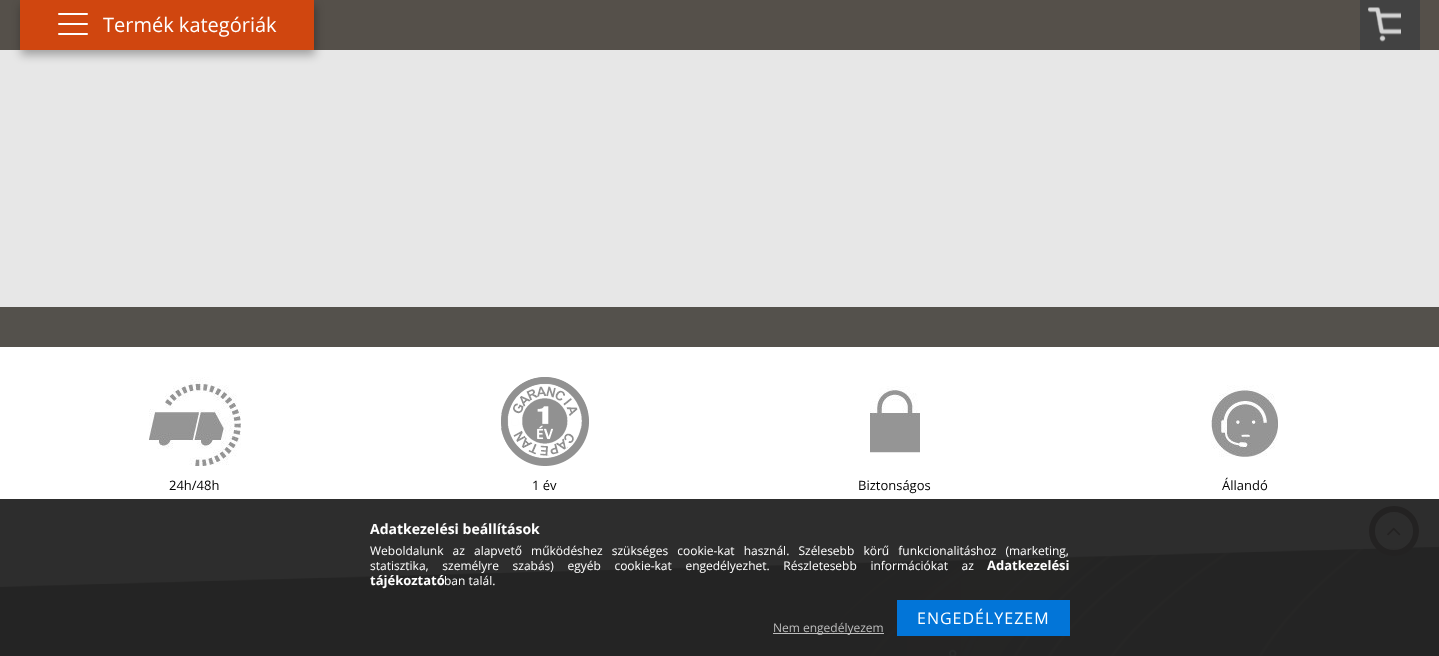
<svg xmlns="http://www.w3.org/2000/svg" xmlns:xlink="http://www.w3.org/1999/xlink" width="1439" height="656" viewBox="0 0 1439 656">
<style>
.cls-1{font:20px Open Sans;fill:#ffffff}
.cls-2{font:13px Open Sans;fill:#000000}
.cls-3{font:bold 14px Open Sans;fill:#ffffff}
.cls-4{font:12px Open Sans;fill:#ffffff}
.cls-5{font:bold 13px Open Sans;fill:#ffffff}
.cls-6{font:16px Open Sans;letter-spacing:1px;fill:#ffffff}
.cls-7{font:12px Open Sans;fill:#bdbdbd}
</style>
<rect width="100%" height="100%" fill="#e7e7e7"/>
<rect fill="#55504a" x="0" y="0" width="1439" height="50"/>
<rect fill="#000000" fill-opacity="0.3" filter="blur(5px)" x="21" y="5" width="294" height="50"/>
<rect fill="#d0460f" x="20" y="0" width="294" height="50"/>
<rect fill="#ffffff" x="58" y="13" width="30" height="2" rx="1"/>
<rect fill="#ffffff" x="58" y="23" width="30" height="2" rx="1"/>
<rect fill="#ffffff" x="58" y="33" width="30" height="2" rx="1"/>
<rect fill="#424242" x="1360" y="0" width="60" height="50"/>
<image xlink:href="image0.png" x="1368" y="7" width="33" height="35"/>
<rect fill="#54514c" x="0" y="307" width="1439" height="40"/>
<image xlink:href="image1.png" x="0" y="347" width="1439" height="309"/>
<image xlink:href="image2.png" x="149" y="377" width="92" height="89"/>
<image xlink:href="image3.png" x="501" y="377" width="88" height="89"/>
<image xlink:href="image4.png" x="870" y="386" width="50" height="67"/>
<image xlink:href="image5.png" x="1211" y="385" width="67" height="72"/>
<image xlink:href="image6.png" x="949" y="649" width="8" height="7"/>
<circle fill="#ffffff" fill-opacity="0.8" stroke="#482a28" stroke-width="6" cx="1394" cy="531" r="22"/>
<image xlink:href="image7.png" x="1387" y="527" width="14" height="9"/>
<rect fill="#222222" fill-opacity="0.95" x="0" y="499" width="1439" height="157"/>
<rect fill="#0275d8" x="897" y="600" width="173" height="36"/>
<rect fill="#bdbdbd" x="773" y="633" width="111" height="1"/>
<text class="cls-1" x="103" y="32">Termék kategóriák</text>
<text class="cls-2" x="169" y="490">24h/48h</text>
<text class="cls-2" x="532" y="490">1 év</text>
<text class="cls-2" x="858" y="490">Biztonságos</text>
<text class="cls-2" x="1222" y="490">Állandó</text>
<text class="cls-3" x="370" y="534">Adatkezelési beállítások</text>
<text class="cls-4"><tspan x="370" y="555" word-spacing="6">Weboldalunk az alapvető működéshez szükséges cookie-kat használ. Szélesebb körű funkcionalitáshoz (marketing,</tspan><tspan x="370" y="570" word-spacing="10.5">statisztika, személyre szabás) egyéb cookie-kat engedélyezhet. Részletesebb információkat az</tspan></text>
<text class="cls-5" x="987" y="570">Adatkezelési</text>
<text class="cls-5" x="370" y="585">tájékoztató</text>
<text class="cls-4" x="444" y="585">ban talál.</text>
<text class="cls-6" x="917" y="624">ENGEDÉLYEZEM</text>
<text class="cls-7" x="773" y="632">Nem engedélyezem</text>
</svg>
